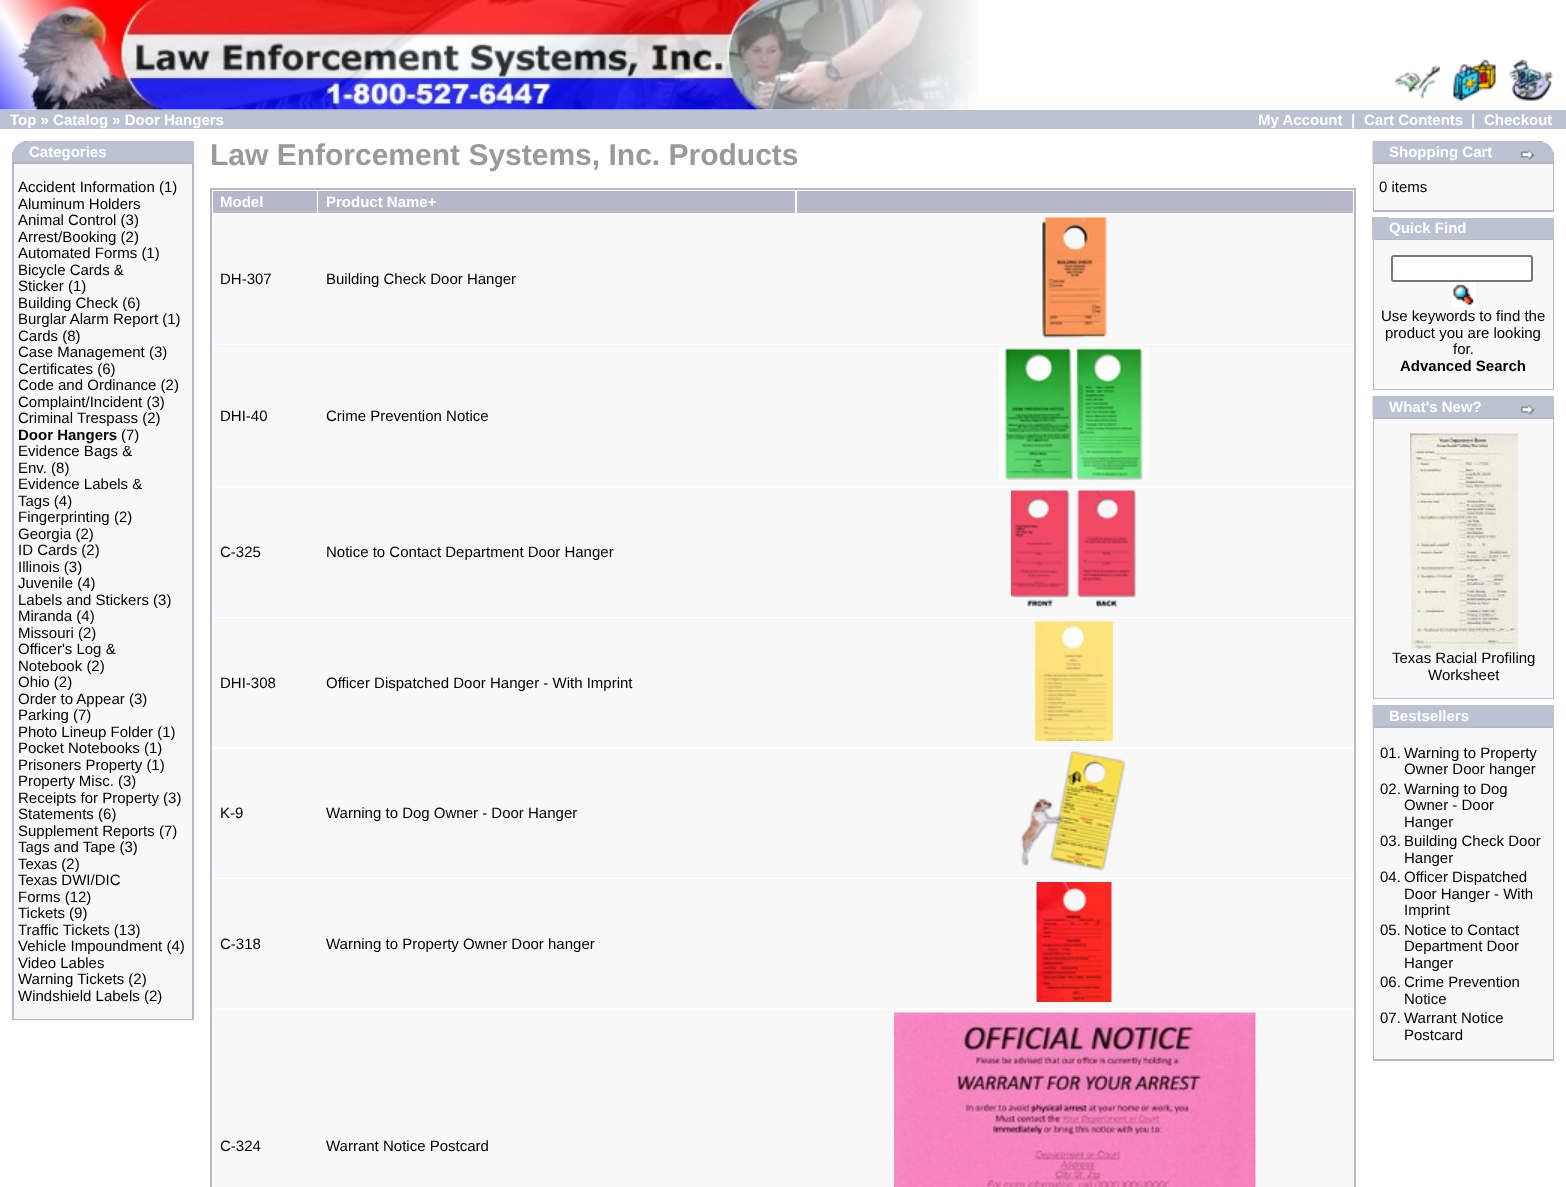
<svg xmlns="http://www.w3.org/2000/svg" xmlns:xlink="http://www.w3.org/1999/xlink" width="1566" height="1187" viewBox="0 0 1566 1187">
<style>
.cls-1{font:bold 15px Liberation Sans;fill:#ffffff}
.cls-2{font:15px Liberation Sans;fill:#000000}
.cls-3{font:bold 15px Liberation Sans;fill:#000000}
.cls-4{font:bold 30px Liberation Sans;fill:#9a9a9a}
</style>
<rect width="100%" height="100%" fill="#ffffff"/>
<image xlink:href="image0.png" x="0" y="0" width="977" height="110"/>
<image xlink:href="image1.png" x="1395" y="65" width="45" height="35"/>
<image xlink:href="image2.png" x="1453" y="59" width="43" height="42"/>
<image xlink:href="image3.png" x="1509" y="59" width="44" height="42"/>
<rect fill="#bbc3d3" x="0" y="110" width="1566" height="19"/>
<rect fill="#bbc3d3" x="12" y="141" width="182" height="21"/>
<image xlink:href="image4.png" x="12" y="141" width="15" height="15"/>
<rect fill="#b6b7cb" x="12" y="162" width="182" height="858"/>
<rect fill="#f8f8f9" x="14" y="164" width="178" height="855"/>
<rect fill="none" stroke="#b6b7cb" stroke-width="2" x="211" y="189" width="1144" height="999"/>
<rect fill="#b6b7cb" x="213" y="191" width="104" height="22"/>
<rect fill="#b6b7cb" x="318" y="191" width="477" height="22"/>
<rect fill="#b6b7cb" x="797" y="191" width="556" height="22"/>
<rect fill="#f8f8f9" x="213" y="215" width="1140" height="129"/>
<image xlink:href="image5.png" x="1042" y="217" width="65" height="121"/>
<rect fill="#f8f8f9" x="213" y="345" width="1140" height="141"/>
<image xlink:href="image6.png" x="999" y="348" width="150" height="132"/>
<rect fill="#f8f8f9" x="213" y="488" width="1140" height="129"/>
<image xlink:href="image7.png" x="1011" y="490" width="126" height="117"/>
<rect fill="#f8f8f9" x="213" y="618" width="1140" height="129"/>
<image xlink:href="image8.png" x="1035" y="621" width="78" height="120"/>
<rect fill="#f8f8f9" x="213" y="749" width="1140" height="129"/>
<image xlink:href="image9.png" x="1021" y="751" width="105" height="121"/>
<rect fill="#f8f8f9" x="213" y="879" width="1140" height="129"/>
<image xlink:href="image10.png" x="1036" y="882" width="76" height="120"/>
<rect fill="#f8f8f9" x="213" y="1010" width="1140" height="177"/>
<image xlink:href="image11.png" x="894" y="1012" width="362" height="175"/>
<rect fill="#bbc3d3" x="1373" y="141" width="181" height="21"/>
<rect fill="#dde1e9" x="1372" y="141" width="1" height="21"/>
<image xlink:href="image12.png" x="1520" y="149" width="15" height="11"/>
<image xlink:href="image13.png" x="1539" y="141" width="15" height="15"/>
<rect fill="#b6b7cb" x="1373" y="162" width="181" height="50"/>
<rect fill="#f8f8f9" x="1374" y="164" width="179" height="46"/>
<rect fill="#bbc3d3" x="1372" y="217" width="17" height="22"/>
<rect fill="#bbc3d3" x="1389" y="218" width="165" height="21"/>
<rect fill="#b6b7cb" x="1373" y="239" width="181" height="151"/>
<rect fill="#f8f8f9" x="1374" y="240" width="179" height="149"/>
<rect fill="#ffffff" stroke="#767676" stroke-width="2" x="1392" y="256" width="140" height="25" rx="2"/>
<image xlink:href="image14.png" x="1452" y="282" width="24" height="25"/>
<rect fill="#bbc3d3" x="1373" y="396" width="181" height="21"/>
<rect fill="#dde1e9" x="1372" y="396" width="1" height="21"/>
<image xlink:href="image12.png" x="1520" y="404" width="15" height="11"/>
<rect fill="#b6b7cb" x="1373" y="417" width="181" height="282"/>
<rect fill="#f8f8f9" x="1374" y="419" width="179" height="279"/>
<image xlink:href="image15.png" x="1410" y="433" width="108" height="217"/>
<rect fill="#bbc3d3" x="1373" y="705" width="181" height="21"/>
<rect fill="#dde1e9" x="1372" y="705" width="1" height="21"/>
<rect fill="#b6b7cb" x="1373" y="726" width="181" height="335"/>
<rect fill="#f8f8f9" x="1374" y="728" width="179" height="331"/>
<text class="cls-1" x="10" y="125">Top » Catalog » Door Hangers</text>
<text class="cls-1" x="1258" y="125">My Account</text>
<text class="cls-1" x="1351" y="125">|</text>
<text class="cls-1" x="1364" y="125">Cart Contents</text>
<text class="cls-1" x="1471" y="125">|</text>
<text class="cls-1" x="1484" y="125">Checkout</text>
<text class="cls-1" x="29" y="157">Categories</text>
<text class="cls-2"><tspan x="18" y="192">Accident Information (1)</tspan><tspan x="18" y="209">Aluminum Holders</tspan><tspan x="18" y="225">Animal Control (3)</tspan><tspan x="18" y="242">Arrest/Booking (2)</tspan><tspan x="18" y="258">Automated Forms (1)</tspan><tspan x="18" y="275">Bicycle Cards &amp;</tspan><tspan x="18" y="291">Sticker (1)</tspan><tspan x="18" y="308">Building Check (6)</tspan><tspan x="18" y="324">Burglar Alarm Report (1)</tspan><tspan x="18" y="341">Cards (8)</tspan><tspan x="18" y="357">Case Management (3)</tspan><tspan x="18" y="374">Certificates (6)</tspan><tspan x="18" y="390">Code and Ordinance (2)</tspan><tspan x="18" y="407">Complaint/Incident (3)</tspan><tspan x="18" y="423">Criminal Trespass (2)</tspan></text>
<text class="cls-3" x="18" y="440">Door Hangers</text>
<text class="cls-2" x="121" y="440">(7)</text>
<text class="cls-2"><tspan x="18" y="456">Evidence Bags &amp;</tspan><tspan x="18" y="473">Env. (8)</tspan><tspan x="18" y="489">Evidence Labels &amp;</tspan><tspan x="18" y="506">Tags (4)</tspan><tspan x="18" y="522">Fingerprinting (2)</tspan><tspan x="18" y="539">Georgia (2)</tspan><tspan x="18" y="555">ID Cards (2)</tspan><tspan x="18" y="572">Illinois (3)</tspan><tspan x="18" y="588">Juvenile (4)</tspan><tspan x="18" y="605">Labels and Stickers (3)</tspan><tspan x="18" y="621">Miranda (4)</tspan><tspan x="18" y="638">Missouri (2)</tspan><tspan x="18" y="654">Officer's Log &amp;</tspan><tspan x="18" y="671">Notebook (2)</tspan><tspan x="18" y="687">Ohio (2)</tspan><tspan x="18" y="704">Order to Appear (3)</tspan><tspan x="18" y="720">Parking (7)</tspan><tspan x="18" y="737">Photo Lineup Folder (1)</tspan><tspan x="18" y="753">Pocket Notebooks (1)</tspan><tspan x="18" y="770">Prisoners Property (1)</tspan><tspan x="18" y="786">Property Misc. (3)</tspan><tspan x="18" y="803">Receipts for Property (3)</tspan><tspan x="18" y="819">Statements (6)</tspan><tspan x="18" y="836">Supplement Reports (7)</tspan><tspan x="18" y="852">Tags and Tape (3)</tspan><tspan x="18" y="869">Texas (2)</tspan><tspan x="18" y="885">Texas DWI/DIC</tspan><tspan x="18" y="902">Forms (12)</tspan><tspan x="18" y="918">Tickets (9)</tspan><tspan x="18" y="935">Traffic Tickets (13)</tspan><tspan x="18" y="951">Vehicle Impoundment (4)</tspan><tspan x="18" y="968">Video Lables</tspan><tspan x="18" y="984">Warning Tickets (2)</tspan><tspan x="18" y="1001">Windshield Labels (2)</tspan></text>
<text class="cls-4" x="210" y="165">Law Enforcement Systems, Inc. Products</text>
<text class="cls-1" x="220" y="207">Model</text>
<text class="cls-1" x="326" y="207">Product Name+</text>
<text class="cls-2" x="220" y="284">DH-307</text>
<text class="cls-2" x="326" y="284">Building Check Door Hanger</text>
<text class="cls-2" x="220" y="421">DHI-40</text>
<text class="cls-2" x="326" y="421">Crime Prevention Notice</text>
<text class="cls-2" x="220" y="557">C-325</text>
<text class="cls-2" x="326" y="557">Notice to Contact Department Door Hanger</text>
<text class="cls-2" x="220" y="688">DHI-308</text>
<text class="cls-2" x="326" y="688">Officer Dispatched Door Hanger - With Imprint</text>
<text class="cls-2" x="220" y="818">K-9</text>
<text class="cls-2" x="326" y="818">Warning to Dog Owner - Door Hanger</text>
<text class="cls-2" x="220" y="949">C-318</text>
<text class="cls-2" x="326" y="949">Warning to Property Owner Door hanger</text>
<text class="cls-2" x="220" y="1151">C-324</text>
<text class="cls-2" x="326" y="1151">Warrant Notice Postcard</text>
<text class="cls-1" x="1389" y="157">Shopping Cart</text>
<text class="cls-2" x="1379" y="192">0 items</text>
<text class="cls-1" x="1389" y="233">Quick Find</text>
<text class="cls-2" x="1381" y="321">Use keywords to find the</text>
<text class="cls-2" x="1385" y="338">product you are looking</text>
<text class="cls-2" x="1453" y="354">for.</text>
<text class="cls-3" x="1400" y="371">Advanced Search</text>
<text class="cls-1" x="1389" y="412">What's New?</text>
<text class="cls-2" x="1392" y="663">Texas Racial Profiling</text>
<text class="cls-2" x="1428" y="680">Worksheet</text>
<text class="cls-1" x="1389" y="721">Bestsellers</text>
<text class="cls-2" x="1380" y="758">01.</text>
<text class="cls-2"><tspan x="1404" y="758">Warning to Property</tspan><tspan x="1404" y="774">Owner Door hanger</tspan></text>
<text class="cls-2" x="1380" y="794">02.</text>
<text class="cls-2"><tspan x="1404" y="794">Warning to Dog</tspan><tspan x="1404" y="810">Owner - Door</tspan><tspan x="1404" y="827">Hanger</tspan></text>
<text class="cls-2" x="1380" y="846">03.</text>
<text class="cls-2"><tspan x="1404" y="846">Building Check Door</tspan><tspan x="1404" y="863">Hanger</tspan></text>
<text class="cls-2" x="1380" y="882">04.</text>
<text class="cls-2"><tspan x="1404" y="882">Officer Dispatched</tspan><tspan x="1404" y="899">Door Hanger - With</tspan><tspan x="1404" y="915">Imprint</tspan></text>
<text class="cls-2" x="1380" y="935">05.</text>
<text class="cls-2"><tspan x="1404" y="935">Notice to Contact</tspan><tspan x="1404" y="951">Department Door</tspan><tspan x="1404" y="968">Hanger</tspan></text>
<text class="cls-2" x="1380" y="987">06.</text>
<text class="cls-2"><tspan x="1404" y="987">Crime Prevention</tspan><tspan x="1404" y="1004">Notice</tspan></text>
<text class="cls-2" x="1380" y="1023">07.</text>
<text class="cls-2"><tspan x="1404" y="1023">Warrant Notice</tspan><tspan x="1404" y="1040">Postcard</tspan></text>
</svg>
